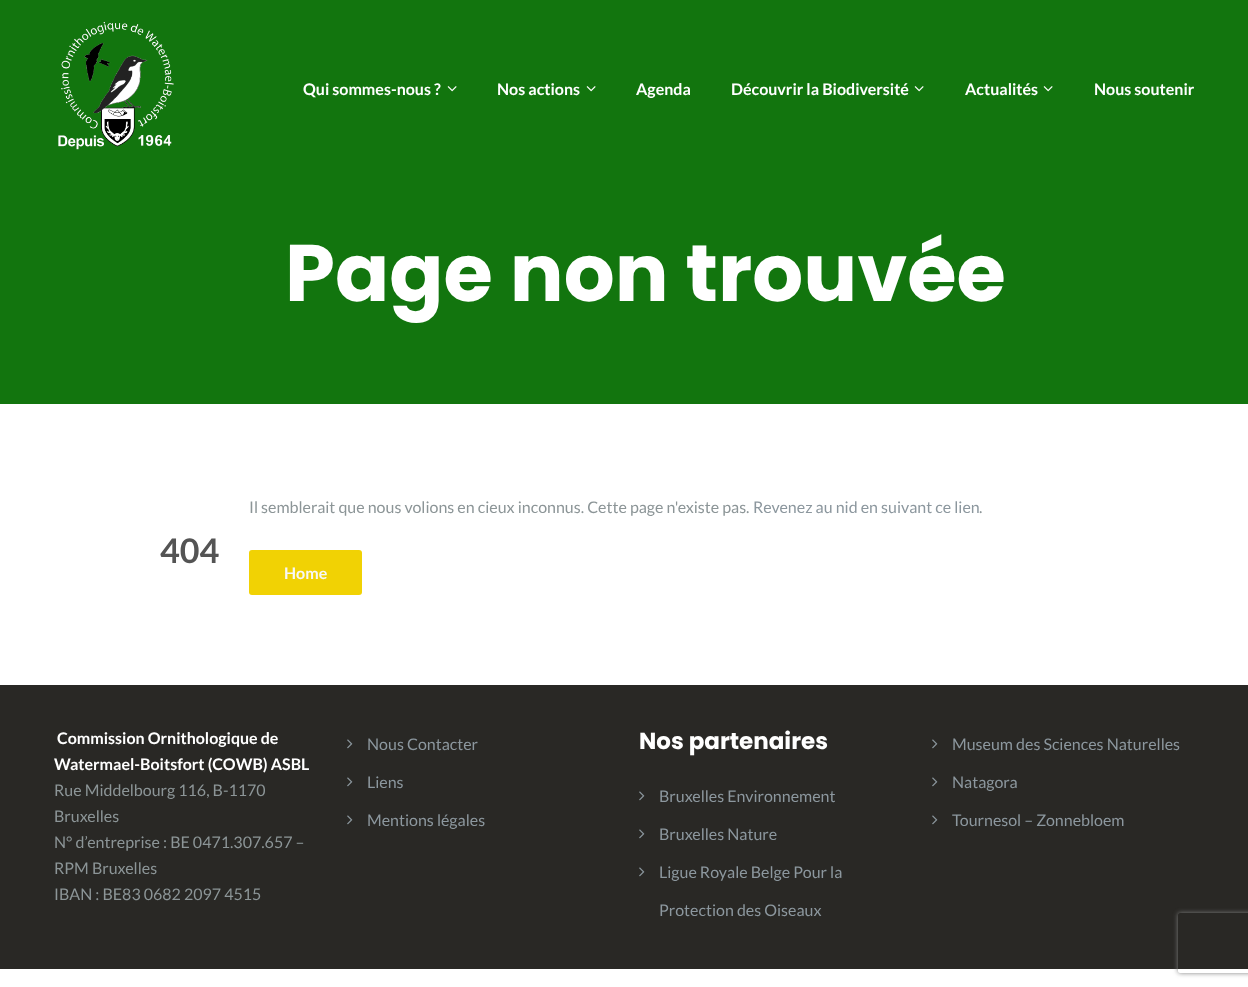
<svg xmlns="http://www.w3.org/2000/svg" xmlns:xlink="http://www.w3.org/1999/xlink" width="1248" height="987" viewBox="0 0 1248 987">
<style>
.cls-1{font:bold 16px Lato;fill:#ffffff}
.cls-2{font:bold 80px Poppins;fill:#ffffff}
.cls-3{font:bold 34px Lato;fill:#545454}
.cls-4{font:16px Lato;fill:#8c9597}
.cls-5{font:16px Lato;fill:#8c979e}
.cls-6{font:bold 16px Lato;fill:#f7f7f7}
.cls-7{font:bold 23px Poppins;fill:#ffffff}
</style>
<defs>
<clipPath id="clip1"><path d="M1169 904H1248V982H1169ZM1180 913H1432C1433 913 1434 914 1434 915V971C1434 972 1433 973 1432 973H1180C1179 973 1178 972 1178 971V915C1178 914 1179 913 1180 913Z" clip-rule="evenodd"/></clipPath>
</defs>
<rect width="100%" height="100%" fill="#ffffff"/>
<rect fill="#12750e" x="0" y="0" width="1248" height="404"/>
<image xlink:href="image0.png" x="58" y="21" width="116" height="129"/>
<image xlink:href="image1.png" x="447" y="86" width="10" height="6"/>
<image xlink:href="image1.png" x="586" y="86" width="10" height="6"/>
<image xlink:href="image1.png" x="914" y="86" width="10" height="6"/>
<image xlink:href="image1.png" x="1043" y="86" width="10" height="6"/>
<rect fill="#f1d204" x="249" y="550" width="113" height="45" rx="3"/>
<rect fill="#292825" x="0" y="685" width="1248" height="284"/>
<image xlink:href="image2.png" x="347" y="739" width="6" height="10"/>
<image xlink:href="image2.png" x="347" y="777" width="6" height="10"/>
<image xlink:href="image2.png" x="347" y="815" width="6" height="10"/>
<image xlink:href="image2.png" x="639" y="791" width="6" height="10"/>
<image xlink:href="image2.png" x="639" y="829" width="6" height="10"/>
<image xlink:href="image2.png" x="639" y="867" width="6" height="10"/>
<image xlink:href="image2.png" x="932" y="739" width="6" height="10"/>
<image xlink:href="image2.png" x="932" y="777" width="6" height="10"/>
<image xlink:href="image2.png" x="932" y="815" width="6" height="10"/>
<g clip-path="url(#clip1)">
<rect fill="#808080" filter="blur(2.5px)" x="1178" y="913" width="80" height="60" rx="2"/>
</g>
<text class="cls-1" x="303" y="95">Qui sommes-nous ?</text>
<text class="cls-1" x="497" y="95">Nos actions</text>
<text class="cls-1" x="636" y="95">Agenda</text>
<text class="cls-1" x="731" y="95">Découvrir la Biodiversité</text>
<text class="cls-1" x="965" y="95">Actualités</text>
<text class="cls-1" x="1094" y="95">Nous soutenir</text>
<text class="cls-2" x="285" y="301">Page non trouvée</text>
<text class="cls-3" x="160" y="563">404</text>
<text class="cls-4" x="249" y="513">Il semblerait que nous volions en cieux inconnus. Cette page n'existe pas.</text>
<text class="cls-5" x="753" y="513">Revenez au nid en suivant ce lien</text>
<text class="cls-4" x="979" y="513">.</text>
<text class="cls-6" x="284" y="579">Home</text>
<text class="cls-1" x="57" y="744">Commission Ornithologique de</text>
<text class="cls-1" x="54" y="770">Watermael-Boitsfort (COWB) ASBL</text>
<text class="cls-4"><tspan x="54" y="796">Rue Middelbourg 116, B-1170</tspan><tspan x="54" y="822">Bruxelles</tspan><tspan x="54" y="848">N° d’entreprise : BE 0471.307.657 –</tspan><tspan x="54" y="874">RPM Bruxelles</tspan><tspan x="54" y="900">IBAN : BE83 0682 2097 4515</tspan></text>
<text class="cls-5" x="367" y="750">Nous Contacter</text>
<text class="cls-5" x="367" y="788">Liens</text>
<text class="cls-5" x="367" y="826">Mentions légales</text>
<text class="cls-7" x="639" y="749">Nos partenaires</text>
<text class="cls-5" x="659" y="802">Bruxelles Environnement</text>
<text class="cls-5" x="659" y="840">Bruxelles Nature</text>
<text class="cls-5" x="659" y="878">Ligue Royale Belge Pour la</text>
<text class="cls-5" x="659" y="916">Protection des Oiseaux</text>
<text class="cls-5" x="952" y="750">Museum des Sciences Naturelles</text>
<text class="cls-5" x="952" y="788">Natagora</text>
<text class="cls-5" x="952" y="826">Tournesol – Zonnebloem</text>
</svg>
